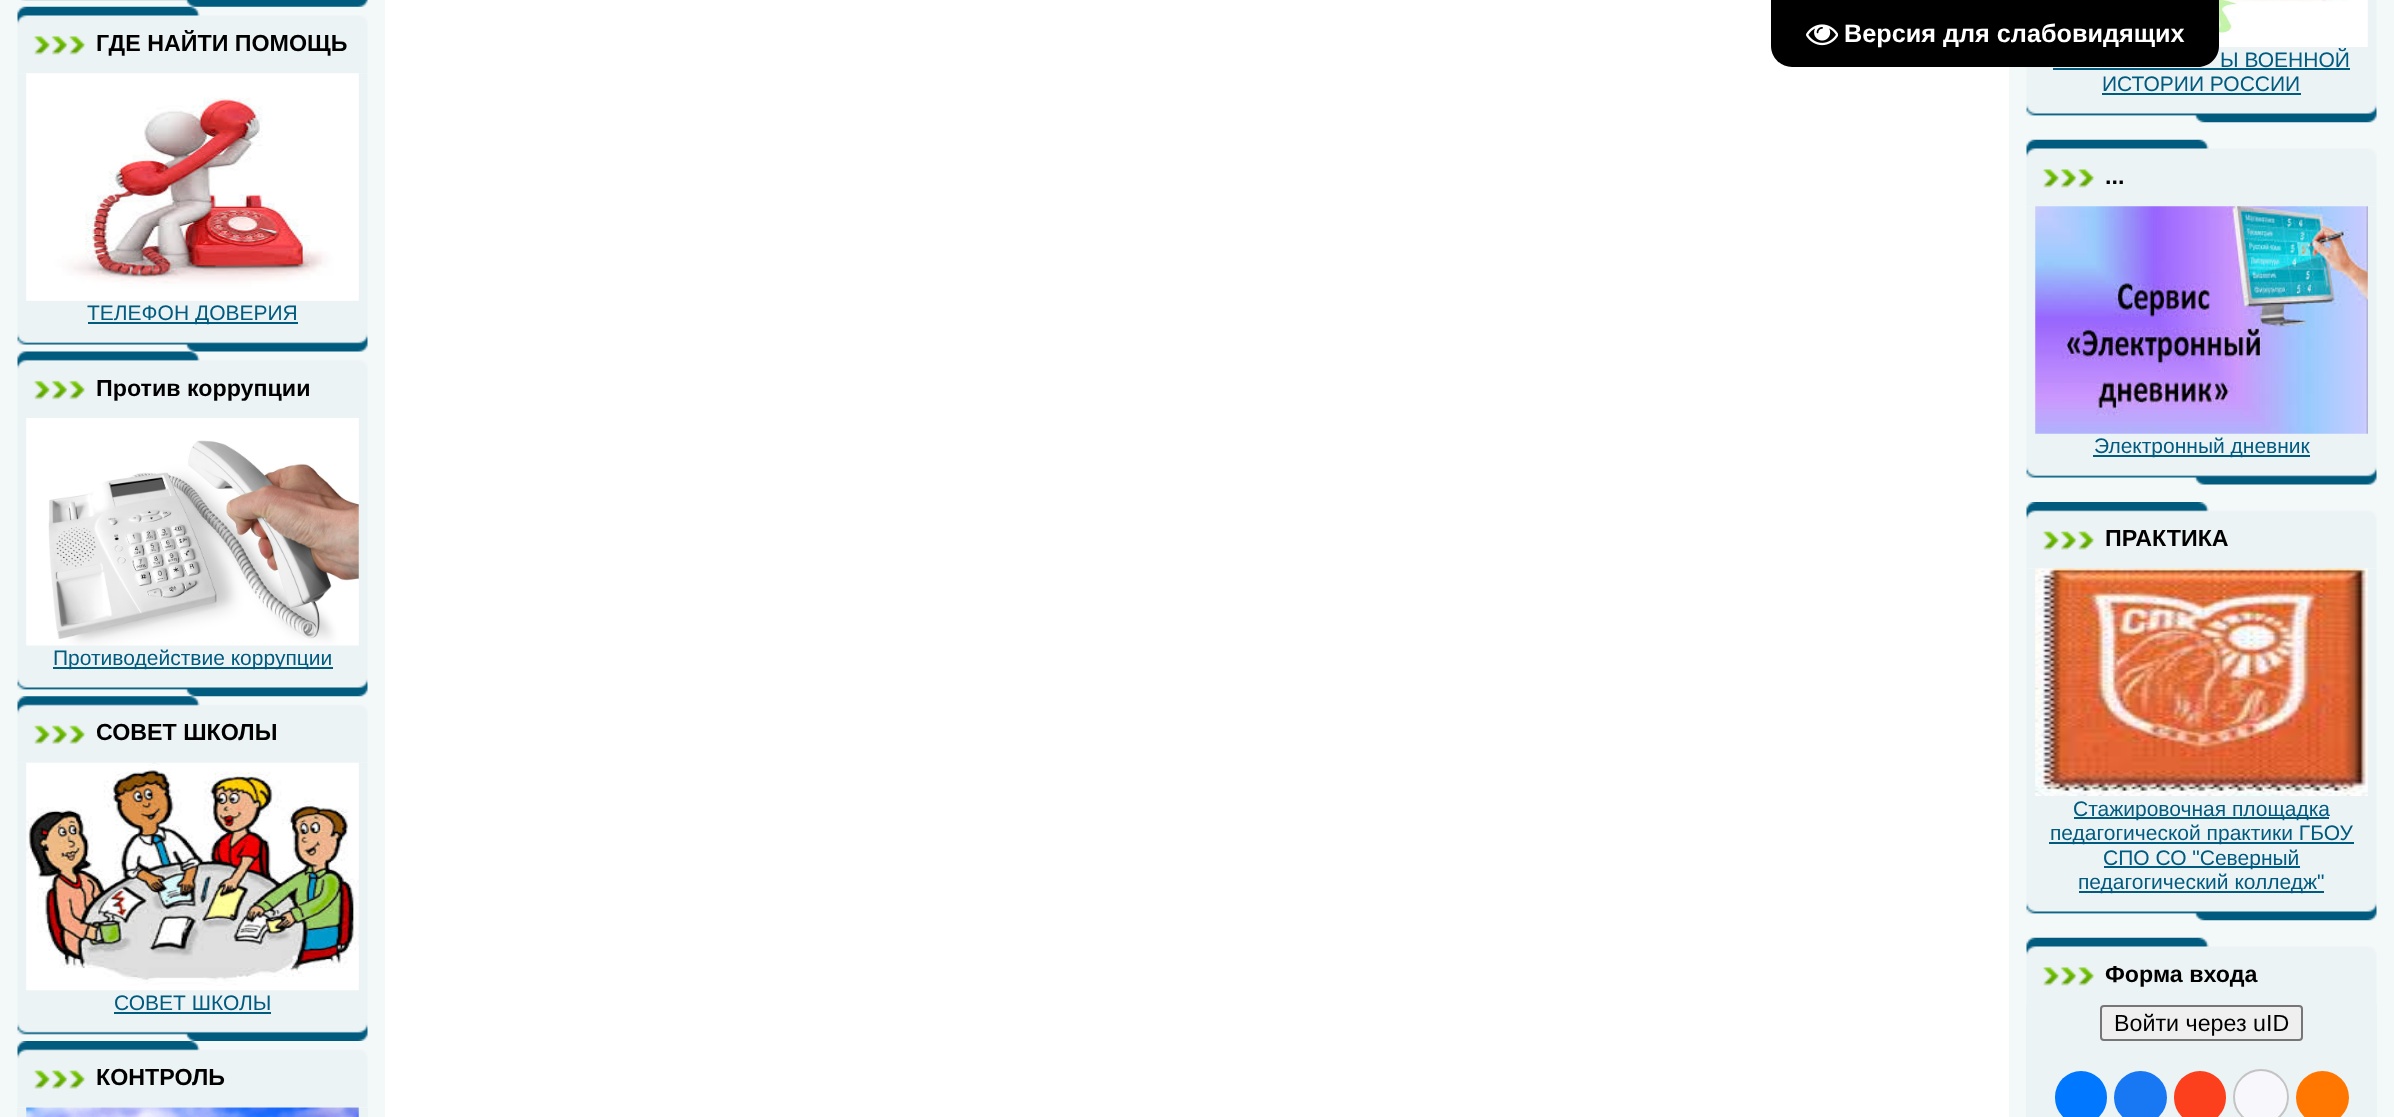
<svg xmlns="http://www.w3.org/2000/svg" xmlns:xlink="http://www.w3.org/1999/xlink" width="2394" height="1117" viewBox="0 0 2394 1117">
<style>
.cls-1{font:bold 25.25px Liberation Sans;fill:#ffffff}
.cls-2{font:bold 23.25px Liberation Sans;fill:#000000}
.cls-3{font:21px Liberation Sans;fill:#005b7f}
.cls-4{font:23.25px Liberation Sans;fill:#000000}
</style>
<rect width="100%" height="100%" fill="#f3f8f9"/>
<rect fill="#ffffff" x="385" y="0" width="1624" height="1117"/>
<image xlink:href="image13.png" x="2026" y="0" width="351" height="123"/>
<image xlink:href="image14.png" x="2218" y="0" width="150" height="47"/>
<path fill="#000000" d="M1771 0H2219V46C2219 57.5 2209.5 67 2198 67H1792C1780.5 67 1771 57.5 1771 46Z"/>
<image xlink:href="image0.png" x="1806" y="24" width="32" height="22"/>
<image xlink:href="image1.png" x="21" y="0" width="347" height="7"/>
<image xlink:href="image2.png" x="17" y="6" width="351" height="67"/>
<image xlink:href="image3.png" x="17" y="73" width="351" height="279"/>
<image xlink:href="image4.png" x="26" y="73" width="333" height="228"/>
<rect fill="#005b7f" x="88" y="322" width="210" height="2"/>
<image xlink:href="image5.png" x="17" y="351" width="351" height="67"/>
<image xlink:href="image6.png" x="17" y="418" width="351" height="279"/>
<image xlink:href="image7.png" x="26" y="418" width="333" height="228"/>
<rect fill="#005b7f" x="53" y="667" width="280" height="2"/>
<image xlink:href="image8.png" x="17" y="696" width="351" height="67"/>
<image xlink:href="image9.png" x="17" y="763" width="351" height="278"/>
<image xlink:href="image10.png" x="26" y="762" width="333" height="229"/>
<rect fill="#005b7f" x="114" y="1012" width="157" height="2"/>
<image xlink:href="image11.png" x="17" y="1041" width="351" height="67"/>
<rect fill="#ecf3f5" x="17" y="1108" width="351" height="9"/>
<image xlink:href="image12.png" x="26" y="1107" width="333" height="10"/>
<rect fill="#005b7f" x="2053" y="68" width="297" height="2"/>
<rect fill="#005b7f" x="2102" y="93" width="199" height="2"/>
<image xlink:href="image15.png" x="2026" y="139" width="351" height="67"/>
<image xlink:href="image3.png" x="2026" y="206" width="351" height="279"/>
<image xlink:href="image16.png" x="2035" y="206" width="333" height="228"/>
<rect fill="#005b7f" x="2093" y="455" width="217" height="2"/>
<image xlink:href="image11.png" x="2026" y="502" width="351" height="67"/>
<image xlink:href="image17.png" x="2026" y="569" width="351" height="352"/>
<image xlink:href="image18.png" x="2035" y="568" width="333" height="228"/>
<rect fill="#005b7f" x="2074" y="817" width="255" height="2"/>
<rect fill="#005b7f" x="2049" y="842" width="305" height="2"/>
<rect fill="#005b7f" x="2104" y="866" width="196" height="2"/>
<rect fill="#005b7f" x="2079" y="891" width="245" height="2"/>
<image xlink:href="image15.png" x="2026" y="937" width="351" height="67"/>
<rect fill="#ecf3f5" x="2026" y="1004" width="351" height="113"/>
<rect fill="#efefef" stroke="#767676" stroke-width="2" x="2101" y="1006" width="201" height="34" rx="3"/>
<rect fill="#0077ff" x="2055" y="1071" width="52" height="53" rx="26"/>
<circle fill="#1877f2" cx="2140.5" cy="1097.5" r="26.5"/>
<rect fill="#fc3f1d" x="2174" y="1071" width="52" height="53" rx="26"/>
<circle fill="#f8f8fc" stroke="#c4c4c4" stroke-width="2" cx="2261" cy="1097" r="27"/>
<circle fill="#ff7700" cx="2322.5" cy="1097.5" r="26.5"/>
<text class="cls-1" x="1844" y="42">Версия для слабовидящих</text>
<text class="cls-2" x="96" y="51">ГДЕ НАЙТИ ПОМОЩЬ</text>
<text class="cls-3" x="87" y="320">ТЕЛЕФОН ДОВЕРИЯ</text>
<text class="cls-2" x="96" y="396">Против коррупции</text>
<text class="cls-3" x="53" y="665">Противодействие коррупции</text>
<text class="cls-2" x="96" y="740">СОВЕТ ШКОЛЫ</text>
<text class="cls-3" x="114" y="1010">СОВЕТ ШКОЛЫ</text>
<text class="cls-2" x="96" y="1085">КОНТРОЛЬ</text>
<text class="cls-3" x="2220" y="67">Ы ВОЕННОЙ</text>
<text class="cls-3" x="2102" y="91">ИСТОРИИ РОССИИ</text>
<text class="cls-2" x="2105" y="184">...</text>
<text class="cls-3" x="2094" y="453">Электронный дневник</text>
<text class="cls-2" x="2105" y="546">ПРАКТИКА</text>
<text class="cls-3" x="2073" y="816">Стажировочная площадка</text>
<text class="cls-3" x="2050" y="840">педагогической практики ГБОУ</text>
<text class="cls-3" x="2103" y="865">СПО СО "Северный</text>
<text class="cls-3" x="2078" y="889">педагогический колледж"</text>
<text class="cls-2" x="2105" y="982">Форма входа</text>
<text class="cls-4" x="2114" y="1031">Войти через uID</text>
</svg>
